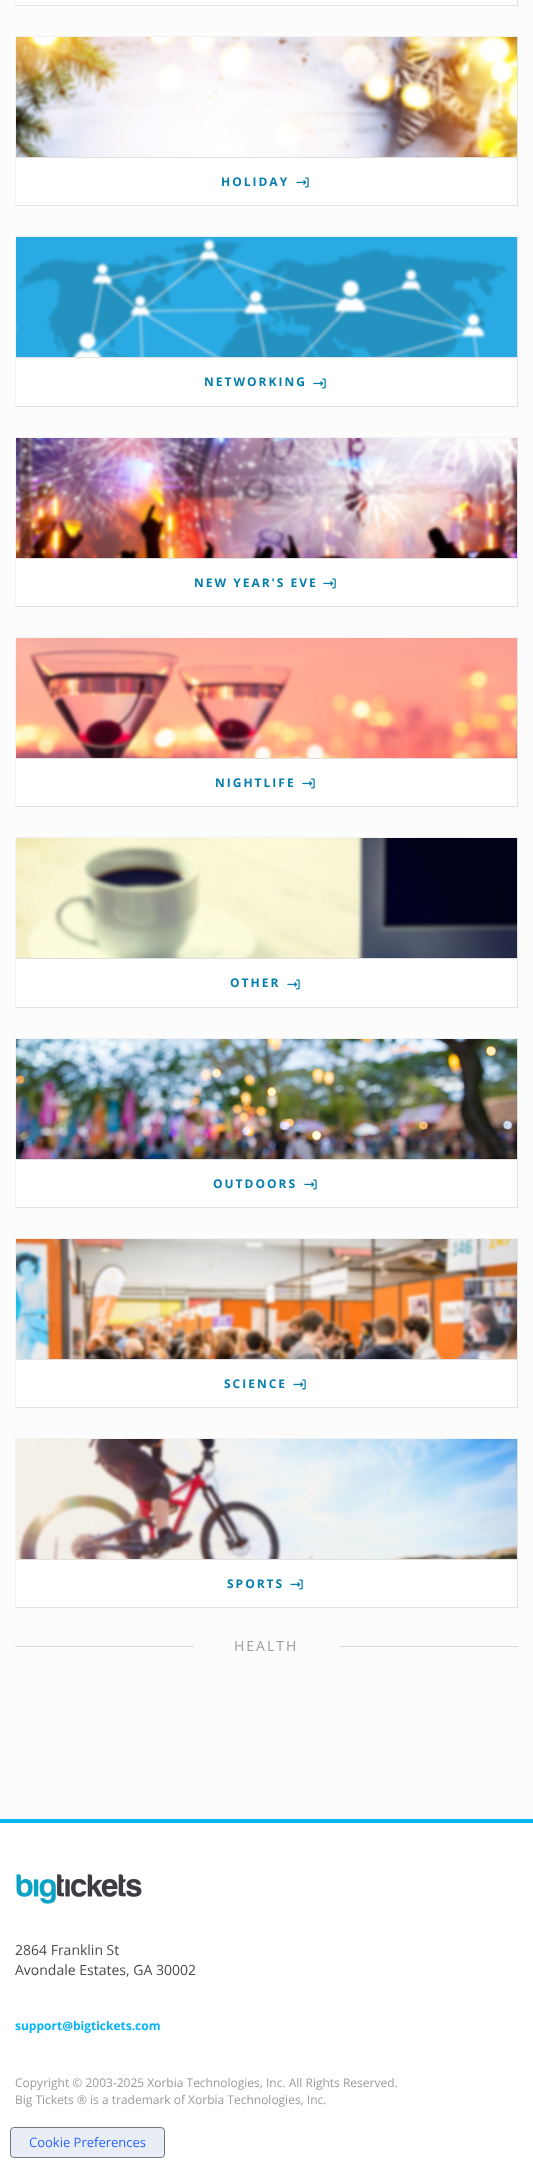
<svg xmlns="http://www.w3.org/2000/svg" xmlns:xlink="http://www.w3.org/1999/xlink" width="533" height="2168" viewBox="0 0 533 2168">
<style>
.cls-1{font:bold 12px Open Sans;letter-spacing:2px;fill:#057eac}
.cls-2{font:14px Open Sans;letter-spacing:2px;fill:#9b9b9b}
.cls-3{font:14px Open Sans;fill:#4a4a4a}
.cls-4{font:bold 12px Open Sans;fill:#07b4f6}
.cls-5{font:12px Open Sans;fill:#9b9b9b}
.cls-6{font:13px Open Sans;fill:#2962ff}
</style>
<rect width="100%" height="100%" fill="#ffffff"/>
<rect fill="#fcfcfc" x="0" y="0" width="533" height="1819"/>
<rect fill="#e1e1e1" x="517" y="0" width="1" height="6"/>
<rect fill="#e1e1e1" x="15" y="5" width="503" height="1"/>
<rect fill="#f2f2f2" x="15" y="0" width="1" height="6"/>
<rect fill="#ffffff" x="16" y="0" width="501" height="5"/>
<rect fill="#f2f2f2" x="15" y="36" width="503" height="1"/>
<rect fill="#e1e1e1" x="517" y="36" width="1" height="170"/>
<rect fill="#e1e1e1" x="15" y="205" width="503" height="1"/>
<rect fill="#f2f2f2" x="15" y="36" width="1" height="170"/>
<image xlink:href="image0.png" x="16" y="37" width="501" height="120"/>
<rect fill="#e1e1e1" x="16" y="157" width="501" height="1"/>
<rect fill="#ffffff" x="16" y="158" width="501" height="47"/>
<image xlink:href="image1.png" x="296" y="177" width="13" height="11"/>
<rect fill="#f2f2f2" x="15" y="236" width="503" height="1"/>
<rect fill="#e1e1e1" x="517" y="236" width="1" height="171"/>
<rect fill="#e1e1e1" x="15" y="406" width="503" height="1"/>
<rect fill="#f2f2f2" x="15" y="236" width="1" height="171"/>
<image xlink:href="image2.png" x="16" y="237" width="501" height="120"/>
<rect fill="#e1e1e1" x="16" y="357" width="501" height="1"/>
<rect fill="#ffffff" x="16" y="358" width="501" height="48"/>
<image xlink:href="image1.png" x="313" y="378" width="13" height="11"/>
<rect fill="#f2f2f2" x="15" y="437" width="503" height="1"/>
<rect fill="#e1e1e1" x="517" y="437" width="1" height="170"/>
<rect fill="#e1e1e1" x="15" y="606" width="503" height="1"/>
<rect fill="#f2f2f2" x="15" y="437" width="1" height="170"/>
<image xlink:href="image3.png" x="16" y="438" width="501" height="120"/>
<rect fill="#e1e1e1" x="16" y="558" width="501" height="1"/>
<rect fill="#ffffff" x="16" y="559" width="501" height="47"/>
<image xlink:href="image1.png" x="323" y="578" width="13" height="11"/>
<rect fill="#f2f2f2" x="15" y="637" width="503" height="1"/>
<rect fill="#e1e1e1" x="517" y="637" width="1" height="170"/>
<rect fill="#e1e1e1" x="15" y="806" width="503" height="1"/>
<rect fill="#f2f2f2" x="15" y="637" width="1" height="170"/>
<image xlink:href="image4.png" x="16" y="638" width="501" height="120"/>
<rect fill="#e1e1e1" x="16" y="758" width="501" height="1"/>
<rect fill="#ffffff" x="16" y="759" width="501" height="47"/>
<image xlink:href="image1.png" x="302" y="778" width="13" height="11"/>
<rect fill="#f2f2f2" x="15" y="837" width="503" height="1"/>
<rect fill="#e1e1e1" x="517" y="837" width="1" height="171"/>
<rect fill="#e1e1e1" x="15" y="1007" width="503" height="1"/>
<rect fill="#f2f2f2" x="15" y="837" width="1" height="171"/>
<image xlink:href="image5.png" x="16" y="838" width="501" height="120"/>
<rect fill="#e1e1e1" x="16" y="958" width="501" height="1"/>
<rect fill="#ffffff" x="16" y="959" width="501" height="48"/>
<image xlink:href="image1.png" x="287" y="979" width="13" height="11"/>
<rect fill="#f2f2f2" x="15" y="1038" width="503" height="1"/>
<rect fill="#e1e1e1" x="517" y="1038" width="1" height="170"/>
<rect fill="#e1e1e1" x="15" y="1207" width="503" height="1"/>
<rect fill="#f2f2f2" x="15" y="1038" width="1" height="170"/>
<image xlink:href="image6.png" x="16" y="1039" width="501" height="120"/>
<rect fill="#e1e1e1" x="16" y="1159" width="501" height="1"/>
<rect fill="#ffffff" x="16" y="1160" width="501" height="47"/>
<image xlink:href="image1.png" x="304" y="1179" width="13" height="11"/>
<rect fill="#f2f2f2" x="15" y="1238" width="503" height="1"/>
<rect fill="#e1e1e1" x="517" y="1238" width="1" height="170"/>
<rect fill="#e1e1e1" x="15" y="1407" width="503" height="1"/>
<rect fill="#f2f2f2" x="15" y="1238" width="1" height="170"/>
<image xlink:href="image7.png" x="16" y="1239" width="501" height="120"/>
<rect fill="#e1e1e1" x="16" y="1359" width="501" height="1"/>
<rect fill="#ffffff" x="16" y="1360" width="501" height="47"/>
<image xlink:href="image1.png" x="293" y="1379" width="13" height="11"/>
<rect fill="#f2f2f2" x="15" y="1438" width="503" height="1"/>
<rect fill="#e1e1e1" x="517" y="1438" width="1" height="170"/>
<rect fill="#e1e1e1" x="15" y="1607" width="503" height="1"/>
<rect fill="#f2f2f2" x="15" y="1438" width="1" height="170"/>
<image xlink:href="image8.png" x="16" y="1439" width="501" height="120"/>
<rect fill="#e1e1e1" x="16" y="1559" width="501" height="1"/>
<rect fill="#ffffff" x="16" y="1560" width="501" height="47"/>
<image xlink:href="image1.png" x="290" y="1579" width="13" height="11"/>
<rect fill="#d8d8d8" x="15" y="1646" width="179" height="1"/>
<rect fill="#d8d8d8" x="339" y="1646" width="179" height="1"/>
<rect fill="#07b4f6" x="0" y="1819" width="533" height="4"/>
<image xlink:href="image9.png" x="16" y="1874" width="126" height="30"/>
<rect fill="#e9eef6" stroke="#747775" x="10.5" y="2127.5" width="154" height="30" rx="3.5"/>
<text class="cls-1" x="221" y="186">HOLIDAY</text>
<text class="cls-1" x="204" y="386">NETWORKING</text>
<text class="cls-1" x="194" y="587">NEW YEAR'S EVE</text>
<text class="cls-1" x="215" y="787">NIGHTLIFE</text>
<text class="cls-1" x="230" y="987">OTHER</text>
<text class="cls-1" x="213" y="1188">OUTDOORS</text>
<text class="cls-1" x="224" y="1388">SCIENCE</text>
<text class="cls-1" x="227" y="1588">SPORTS</text>
<text class="cls-2" x="234" y="1651">HEALTH</text>
<text class="cls-3"><tspan x="15" y="1955">2864 Franklin St</tspan><tspan x="15" y="1975">Avondale Estates, GA 30002</tspan></text>
<text class="cls-4" x="15" y="2030">support@bigtickets.com</text>
<text class="cls-5"><tspan x="15" y="2087">Copyright © 2003-2025 Xorbia Technologies, Inc. All Rights Reserved.</tspan><tspan x="15" y="2104">Big Tickets ® is a trademark of Xorbia Technologies, Inc.</tspan></text>
<text class="cls-6" x="29" y="2147">Cookie Preferences</text>
</svg>
